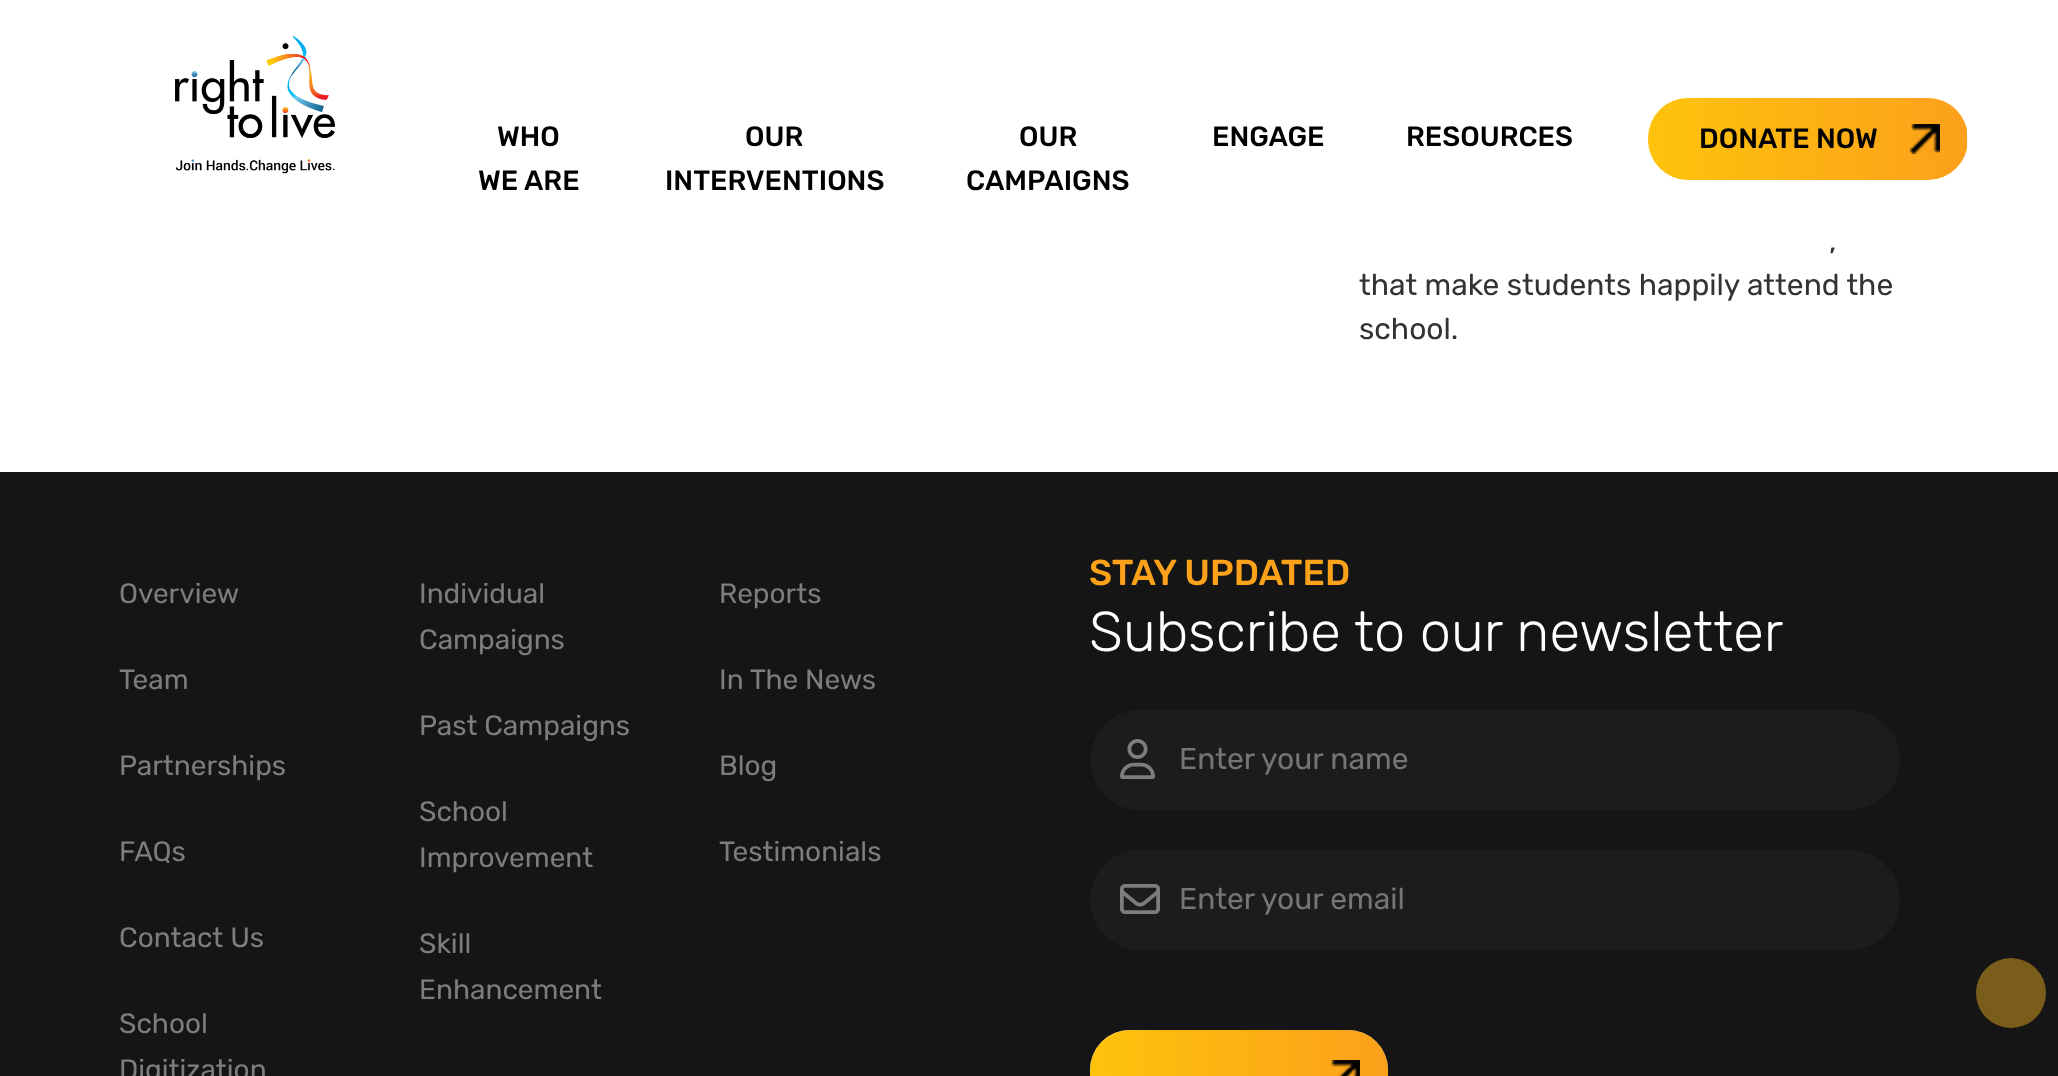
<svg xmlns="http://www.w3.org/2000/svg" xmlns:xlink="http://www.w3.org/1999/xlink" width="2058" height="1076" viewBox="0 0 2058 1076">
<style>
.cls-1{font:500 28px Rubik;fill:#000000}
.cls-2{font:30px Rubik;fill:#333333}
.cls-3{font:28px Rubik;fill:#7d7d7d}
.cls-4{font:500 36px Rubik;fill:#fca21a}
.cls-5{font:300 56px Rubik;fill:#ffffff}
.cls-6{font:30px Rubik;fill:#757575}
</style>
<rect width="100%" height="100%" fill="#ffffff"/>
<image xlink:href="image0.png" x="175" y="35" width="160" height="139"/>
<image xlink:href="image1.png" x="1648" y="98" width="320" height="82"/>
<rect fill="#151515" x="0" y="472" width="2058" height="604"/>
<rect fill="#1c1c1c" x="1090" y="710" width="810" height="100" rx="50"/>
<image xlink:href="image2.png" x="1120" y="739" width="35" height="40"/>
<rect fill="#1c1c1c" x="1090" y="850" width="810" height="100" rx="50"/>
<image xlink:href="image3.png" x="1120" y="884" width="40" height="30"/>
<rect fill="#efefef" x="1090" y="1030" width="298" height="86" rx="40"/>
<image xlink:href="image4.png" x="1090" y="1030" width="298" height="46"/>
<circle fill="#7a5c1b" cx="2011" cy="993" r="35"/>
<text class="cls-1" x="497" y="146">WHO</text>
<text class="cls-1" x="478" y="190">WE ARE</text>
<text class="cls-1" x="745" y="146">OUR</text>
<text class="cls-1" x="665" y="190">INTERVENTIONS</text>
<text class="cls-1" x="1019" y="146">OUR</text>
<text class="cls-1" x="966" y="190">CAMPAIGNS</text>
<text class="cls-1" x="1212" y="146">ENGAGE</text>
<text class="cls-1" x="1406" y="146">RESOURCES</text>
<text class="cls-1" x="1699" y="148">DONATE NOW</text>
<text class="cls-2" x="1829" y="251">,</text>
<text class="cls-2"><tspan x="1359" y="295">that make students happily attend the</tspan><tspan x="1359" y="339">school.</tspan></text>
<text class="cls-3" x="119" y="603">Overview</text>
<text class="cls-3" x="119" y="689">Team</text>
<text class="cls-3" x="119" y="775">Partnerships</text>
<text class="cls-3" x="119" y="861">FAQs</text>
<text class="cls-3" x="119" y="947">Contact Us</text>
<text class="cls-3"><tspan x="119" y="1033">School</tspan><tspan x="119" y="1079">Digitization</tspan></text>
<text class="cls-3"><tspan x="419" y="603">Individual</tspan><tspan x="419" y="649">Campaigns</tspan></text>
<text class="cls-3" x="419" y="735">Past Campaigns</text>
<text class="cls-3"><tspan x="419" y="821">School</tspan><tspan x="419" y="867">Improvement</tspan></text>
<text class="cls-3"><tspan x="419" y="953">Skill</tspan><tspan x="419" y="999">Enhancement</tspan></text>
<text class="cls-3" x="719" y="603">Reports</text>
<text class="cls-3" x="719" y="689">In The News</text>
<text class="cls-3" x="719" y="775">Blog</text>
<text class="cls-3" x="719" y="861">Testimonials</text>
<text class="cls-4" x="1089" y="585">STAY UPDATED</text>
<text class="cls-5" x="1089" y="651">Subscribe to our newsletter</text>
<text class="cls-6" x="1179" y="769">Enter your name</text>
<text class="cls-6" x="1179" y="909">Enter your email</text>
</svg>
